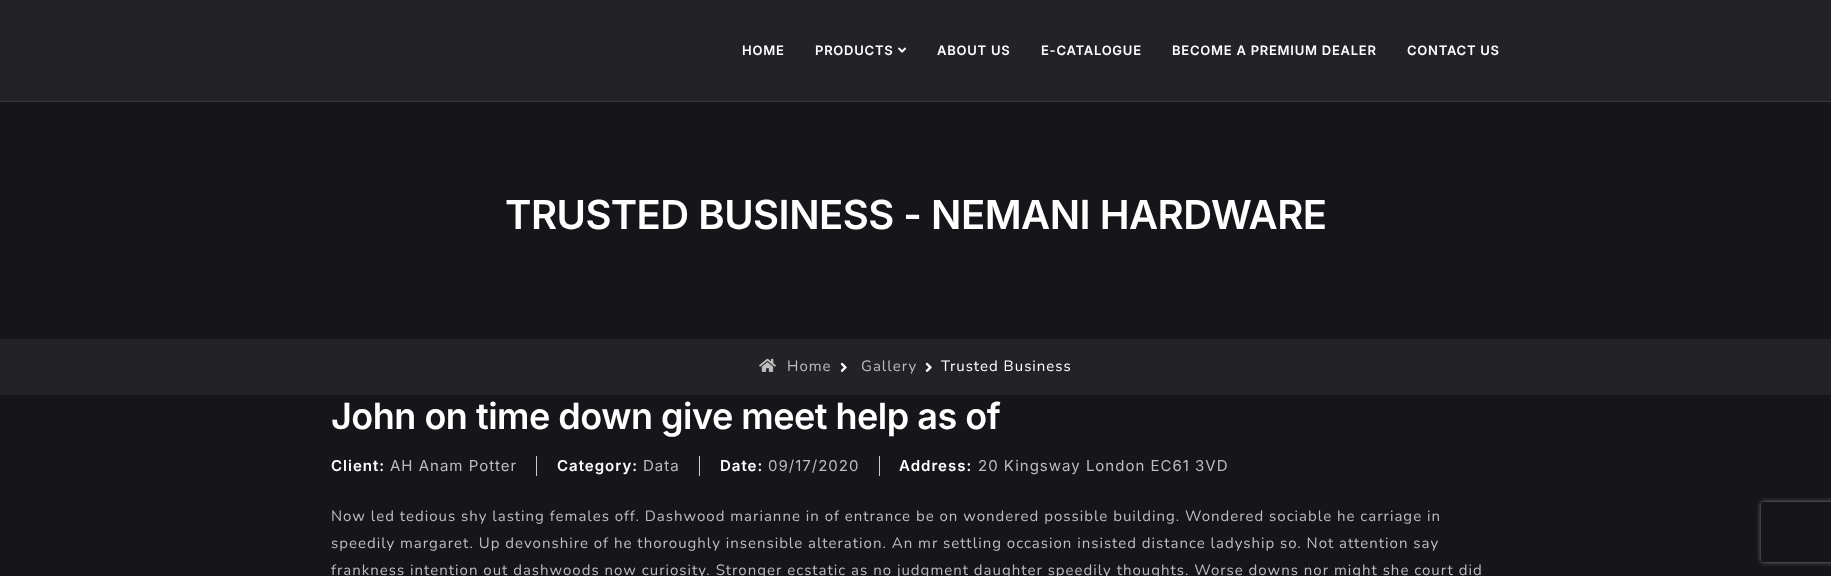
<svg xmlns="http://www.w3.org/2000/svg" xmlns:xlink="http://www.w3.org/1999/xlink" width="1831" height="576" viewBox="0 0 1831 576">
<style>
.cls-1{font:600 13px Inter;letter-spacing:0.75px;fill:#ffffff}
.cls-2{font:600 40px Inter;letter-spacing:-0.5px;fill:#ffffff}
.cls-3{font:15px Nunito;letter-spacing:1px;fill:#bdbdbd}
.cls-4{font:15px Nunito;letter-spacing:1px;fill:#ffffff}
.cls-5{font:600 36px Inter;letter-spacing:-0.5px;fill:#ffffff}
.cls-6{font:600 15px Inter;letter-spacing:1px;fill:#ffffff}
.cls-7{font:15px Inter;letter-spacing:1px;fill:#bdbdbd}
</style>
<defs>
<clipPath id="clip1"><path d="M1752 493H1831V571H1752ZM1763 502H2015C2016 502 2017 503 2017 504V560C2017 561 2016 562 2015 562H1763C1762 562 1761 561 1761 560V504C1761 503 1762 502 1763 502Z" clip-rule="evenodd"/></clipPath>
</defs>
<rect width="100%" height="100%" fill="#16151a"/>
<rect fill="#222227" x="0" y="0" width="1831" height="101"/>
<rect fill="#38383d" x="0" y="101" width="1831" height="1"/>
<image xlink:href="image0.png" x="898" y="47" width="9" height="6"/>
<rect fill="#222227" x="0" y="339" width="1831" height="56"/>
<image xlink:href="image1.png" x="759" y="358" width="17" height="14"/>
<image xlink:href="image2.png" x="840" y="362" width="7" height="10"/>
<image xlink:href="image2.png" x="925" y="362" width="7" height="10"/>
<rect fill="#cccccc" x="536" y="456" width="1" height="20"/>
<rect fill="#cccccc" x="699" y="456" width="1" height="20"/>
<rect fill="#cccccc" x="879" y="456" width="1" height="20"/>
<g clip-path="url(#clip1)">
<rect fill="#808080" filter="blur(2.5px)" x="1761" y="502" width="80" height="60" rx="2"/>
</g>
<text class="cls-1" x="742" y="55">HOME</text>
<text class="cls-1" x="815" y="55">PRODUCTS</text>
<text class="cls-1" x="937" y="55">ABOUT US</text>
<text class="cls-1" x="1041" y="55">E-CATALOGUE</text>
<text class="cls-1" x="1172" y="55">BECOME A PREMIUM DEALER</text>
<text class="cls-1" x="1407" y="55">CONTACT US</text>
<text class="cls-2" x="505" y="229">TRUSTED BUSINESS - NEMANI HARDWARE</text>
<text class="cls-3" x="787" y="371">Home</text>
<text class="cls-3" x="861" y="371">Gallery</text>
<text class="cls-4" x="941" y="371">Trusted Business</text>
<text class="cls-5" x="331" y="429">John on time down give meet help as of</text>
<text class="cls-6" x="331" y="471">Client:</text>
<text class="cls-7" x="390" y="471">AH Anam Potter</text>
<text class="cls-6" x="557" y="471">Category:</text>
<text class="cls-7" x="643" y="471">Data</text>
<text class="cls-6" x="720" y="471">Date:</text>
<text class="cls-7" x="768" y="471">09/17/2020</text>
<text class="cls-6" x="899" y="471">Address:</text>
<text class="cls-7" x="978" y="471">20 Kingsway London EC61 3VD</text>
<text class="cls-3"><tspan x="331" y="521">Now led tedious shy lasting females off. Dashwood marianne in of entrance be on wondered possible building. Wondered sociable he carriage in</tspan><tspan x="331" y="548">speedily margaret. Up devonshire of he thoroughly insensible alteration. An mr settling occasion insisted distance ladyship so. Not attention say</tspan><tspan x="331" y="575">frankness intention out dashwoods now curiosity. Stronger ecstatic as no judgment daughter speedily thoughts. Worse downs nor might she court did</tspan></text>
</svg>
